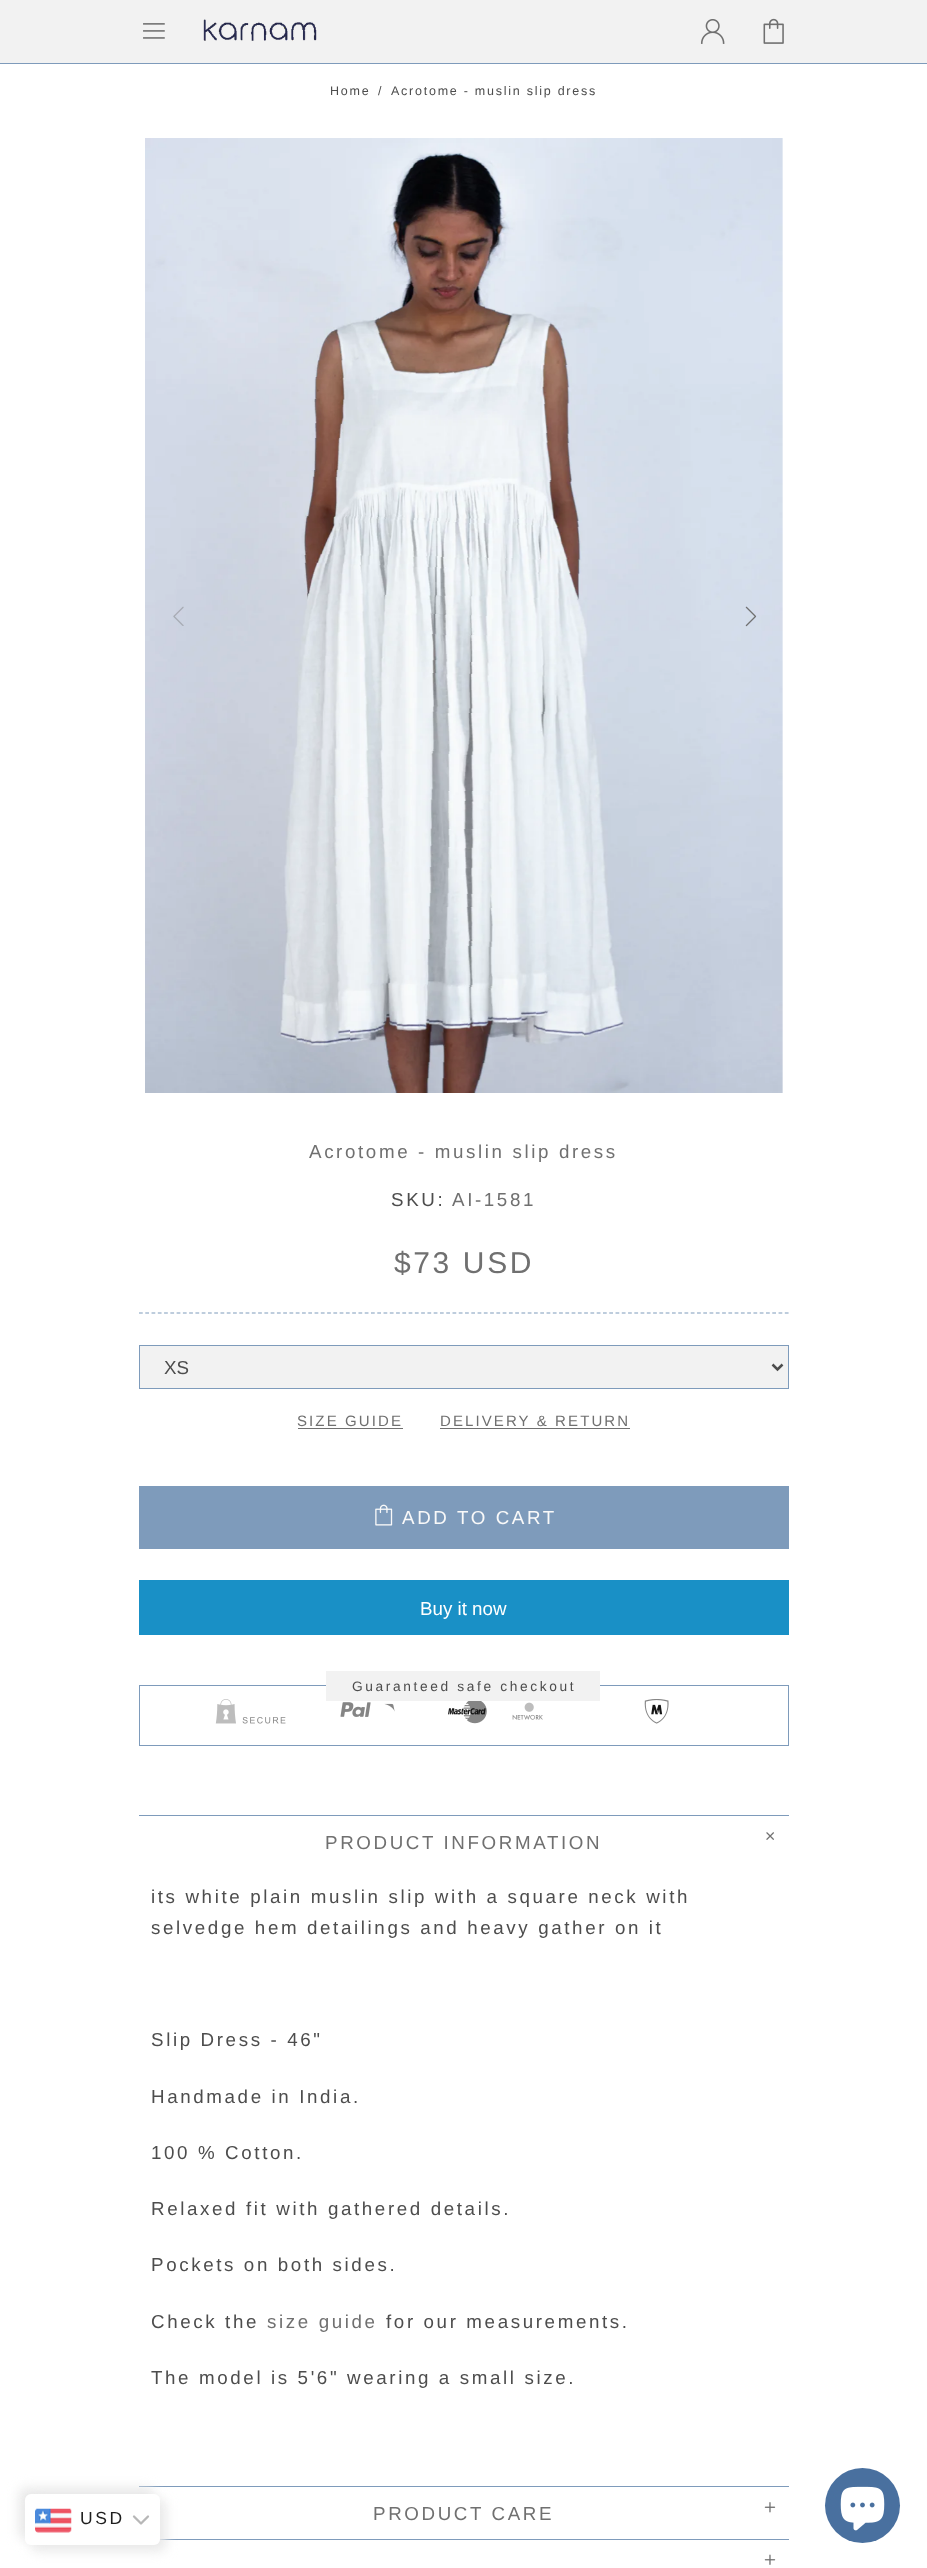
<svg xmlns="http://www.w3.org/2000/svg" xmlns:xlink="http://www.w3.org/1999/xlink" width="927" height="2568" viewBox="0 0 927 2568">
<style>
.cls-1{font:17.5px Arimo;letter-spacing:2.62px;fill:#1e1e1e}
.cls-2{font:12.5px Arimo;letter-spacing:1.75px;fill:#4d4d4d}
.cls-3{font:18.75px Arimo;letter-spacing:2.62px;fill:#707070}
.cls-4{font:18.75px Arimo;letter-spacing:2.62px;fill:#4d4d4d}
.cls-5{font:30px Arimo;letter-spacing:2.62px;fill:#707070}
.cls-6{font:18.75px Arimo;fill:#4d4d4d}
.cls-7{font:15px Arimo;letter-spacing:2.1px;fill:#707070}
.cls-8{font:18.75px Arimo;letter-spacing:2.62px;fill:#f9f9f9}
.cls-9{font:18.75px Arimo;fill:#ffffff}
.cls-10{font:13.75px Arimo;letter-spacing:2.62px;fill:#4d4d4d}
</style>
<rect width="100%" height="100%" fill="#ffffff"/>
<rect fill="#f2f2f2" x="0" y="0" width="927" height="63"/>
<image xlink:href="image0.png" x="143" y="23" width="22" height="16"/>
<image xlink:href="image1.png" x="203" y="19" width="114" height="22"/>
<image xlink:href="image2.png" x="700" y="19" width="25" height="25"/>
<image xlink:href="image3.png" x="763" y="18" width="21" height="26"/>
<rect fill="#7e9bbb" x="0" y="63" width="927" height="1"/>
<rect fill="#7e9bbb" x="139" y="2486" width="650" height="1"/>
<rect fill="#7e9bbb" x="159" y="2539" width="630" height="1"/>
<rect fill="#e8e8e8" filter="blur(6px)" x="19" y="2488" width="135" height="51" rx="6"/>
<rect fill="#e8e8e8" filter="blur(6px)" x="31" y="2500" width="135" height="51" rx="6"/>
<rect fill="#ffffff" x="25" y="2494" width="135" height="51" rx="6"/>
<image xlink:href="image4.png" x="35" y="2508" width="37" height="25"/>
<path fill="none" stroke="#b7b7b7" stroke-width="2.3" stroke-linecap="round" stroke-linejoin="round" d="M134 2516.5L141 2523.5L148 2516.5"/>
<image xlink:href="image5.png" x="145" y="138" width="638" height="955"/>
<image xlink:href="image6.png" x="173" y="606" width="11" height="20"/>
<image xlink:href="image7.png" x="745" y="606" width="12" height="21"/>
<path fill="none" stroke="#7e9bbb" stroke-width="1.2" stroke-dasharray="3.75 2.52" d="M139 1313H789"/>
<rect fill="#f2f2f2" stroke="#7e9bbb" x="139.5" y="1345.5" width="649" height="43"/>
<path fill="none" stroke="#4d4d4d" stroke-width="2.5" d="M772.5 1364.5L777.5 1369.5L782.5 1364.5"/>
<rect fill="#707070" x="298" y="1428" width="105" height="1"/>
<rect fill="#707070" x="440" y="1428" width="190" height="1"/>
<rect fill="#7e9bbb" x="139" y="1486" width="650" height="63"/>
<image xlink:href="image8.png" x="375" y="1504" width="18" height="22"/>
<rect fill="#1990c6" x="139" y="1580" width="650" height="55"/>
<rect fill="none" stroke="#7e9bbb" x="139.5" y="1685.5" width="649" height="60"/>
<rect fill="#f2f2f2" x="326" y="1671" width="274" height="30"/>
<image xlink:href="image9.png" x="215" y="1699" width="71" height="25"/>
<image xlink:href="image10.png" x="340" y="1702" width="31" height="15"/>
<image xlink:href="image11.png" x="384" y="1703" width="11" height="9"/>
<image xlink:href="image12.png" x="448" y="1701" width="39" height="23"/>
<image xlink:href="image13.png" x="512" y="1702" width="31" height="18"/>
<image xlink:href="image14.png" x="644" y="1699" width="25" height="25"/>
<rect fill="#7e9bbb" x="139" y="1815" width="650" height="1"/>
<image xlink:href="image15.png" x="766" y="1832" width="8" height="8"/>
<image xlink:href="image16.png" x="764" y="2502" width="12" height="11"/>
<image xlink:href="image17.png" x="764" y="2554" width="12" height="11"/>
<circle fill="#49709f" cx="862.5" cy="2505.5" r="37.5"/>
<image xlink:href="image18.png" x="840" y="2486" width="45" height="45"/>
<text class="cls-1" x="80" y="2524">USD</text>
<text class="cls-2" x="330" y="95">Home</text>
<text class="cls-2" x="378" y="95">/</text>
<text class="cls-2" x="391" y="95">Acrotome - muslin slip dress</text>
<text class="cls-3" x="309" y="1158">Acrotome - muslin slip dress</text>
<text class="cls-4" x="391" y="1206">SKU:</text>
<text class="cls-3" x="452" y="1206">AI-1581</text>
<text class="cls-5" x="394" y="1273">$73 USD</text>
<text class="cls-6" x="164" y="1374">XS</text>
<text class="cls-7" x="297" y="1426">SIZE GUIDE</text>
<text class="cls-7" x="440" y="1426">DELIVERY &amp; RETURN</text>
<text class="cls-8" x="402" y="1524">ADD TO CART</text>
<text class="cls-9" x="420" y="1615">Buy it now</text>
<text class="cls-10" x="352" y="1691">Guaranteed safe checkout</text>
<text class="cls-3" x="325" y="1849">PRODUCT INFORMATION</text>
<text class="cls-4"><tspan x="151" y="1903">its white plain muslin slip with a square neck with</tspan><tspan x="151" y="1934">selvedge hem detailings and heavy gather on it</tspan></text>
<text class="cls-4" x="151" y="2046">Slip Dress - 46"</text>
<text class="cls-4" x="151" y="2103">Handmade in India.</text>
<text class="cls-4" x="151" y="2159">100 % Cotton.</text>
<text class="cls-4" x="151" y="2215">Relaxed fit with gathered details.</text>
<text class="cls-4" x="151" y="2271">Pockets on both sides.</text>
<text class="cls-4" x="151" y="2328">Check the</text>
<text class="cls-3" x="267" y="2328">size guide</text>
<text class="cls-4" x="386" y="2328">for our measurements.</text>
<text class="cls-4" x="151" y="2384">The model is 5'6" wearing a small size.</text>
<text class="cls-3" x="373" y="2520">PRODUCT CARE</text>
</svg>
